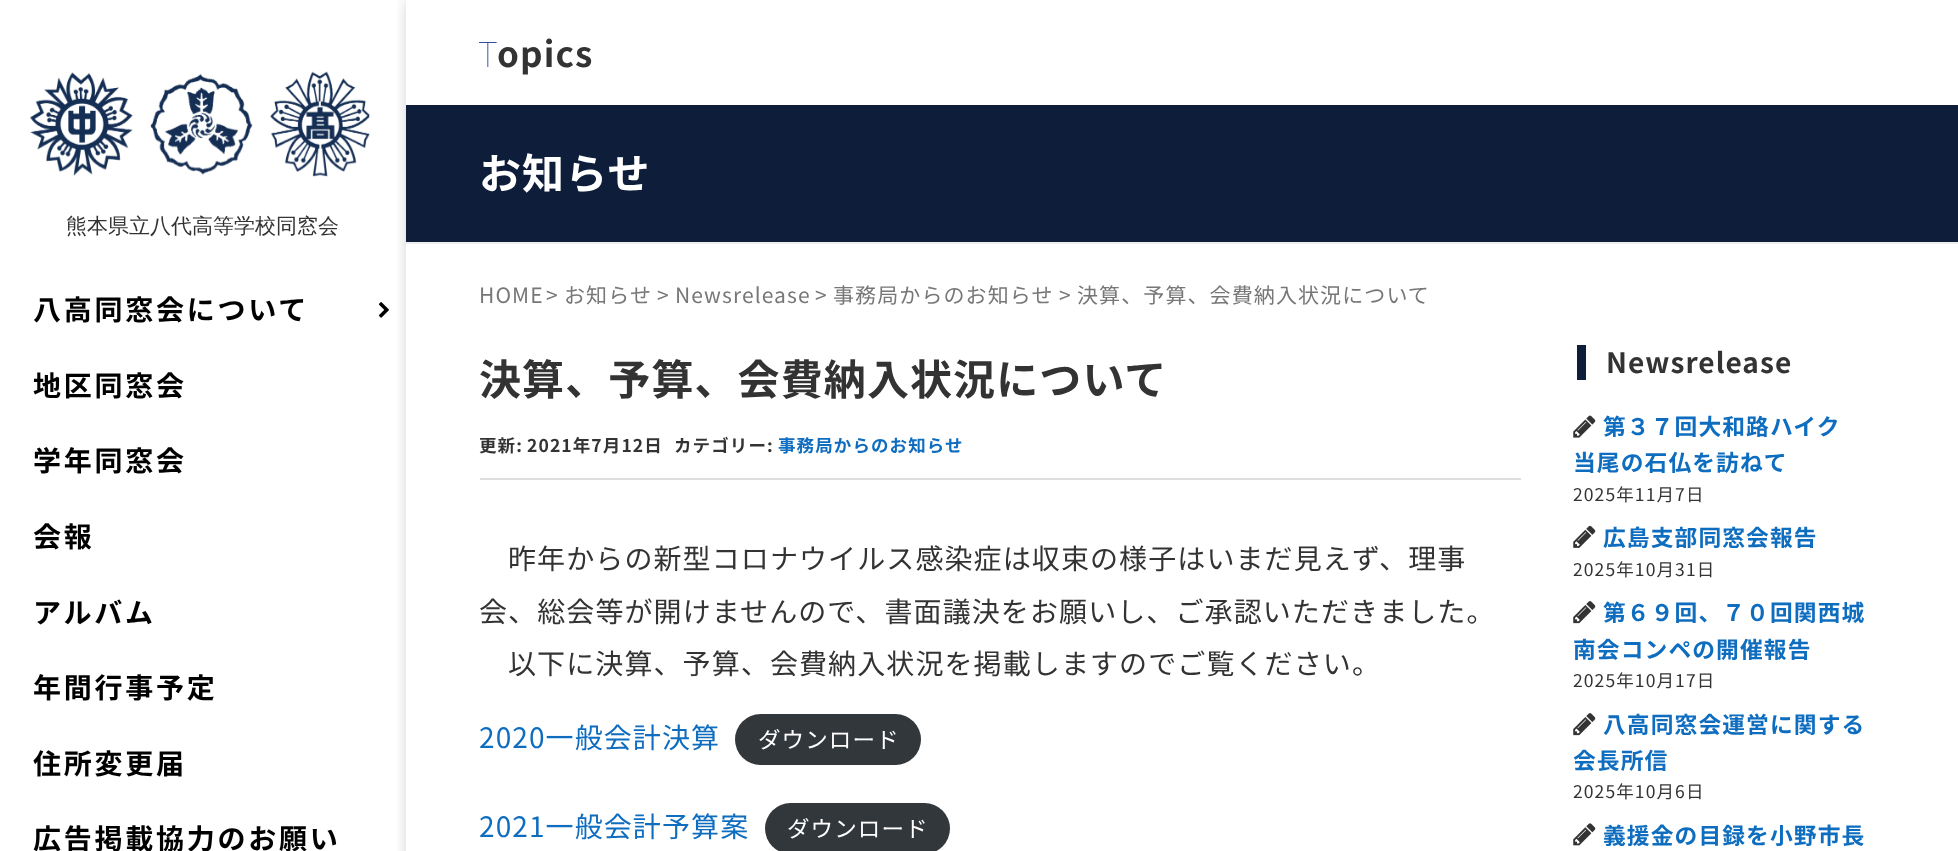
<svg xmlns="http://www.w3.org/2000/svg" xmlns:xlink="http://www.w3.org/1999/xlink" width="1958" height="851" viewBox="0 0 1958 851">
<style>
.cls-1{font:100 21px Noto Sans;fill:#333333}
.cls-2{font:bold 28px Noto Sans JP;letter-spacing:2.75px;fill:#000000}
.cls-3{font:100 35px Noto Sans;letter-spacing:1.1px;fill:#344d9f}
.cls-4{font:bold 35px Noto Sans JP;letter-spacing:1.1px;fill:#333333}
.cls-5{font:bold 42px Noto Sans JP;letter-spacing:1.1px;fill:#ffffff}
.cls-6{font:21px Noto Sans JP;letter-spacing:1.1px;fill:#777777}
.cls-7{font:bold 42px Noto Sans JP;letter-spacing:1.1px;fill:#333333}
.cls-8{font:bold 17.5px Noto Sans JP;letter-spacing:1.1px;fill:#333333}
.cls-9{font:bold 17.5px Noto Sans JP;letter-spacing:1.1px;fill:#0f6dbf}
.cls-10{font:28px Noto Sans JP;letter-spacing:1.1px;fill:#333333}
.cls-11{font:28px Noto Sans JP;letter-spacing:1.1px;fill:#0f6dbf}
.cls-12{font:22.5px Noto Sans JP;letter-spacing:1.1px;fill:#ffffff}
.cls-13{font:bold 28px Noto Sans JP;letter-spacing:1.1px;fill:#333333}
.cls-14{font:bold 22.75px Noto Sans JP;letter-spacing:1.1px;fill:#0f6dbf}
.cls-15{font:17.5px Noto Sans JP;letter-spacing:1.1px;fill:#333333}
</style>
<defs>
<clipPath id="clip1"><rect x="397" y="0" width="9" height="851"/></clipPath>
</defs>
<rect width="100%" height="100%" fill="#ffffff"/>
<g clip-path="url(#clip1)">
<rect fill="#000000" fill-opacity="0.3" filter="blur(9px)" x="411" y="0" width="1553" height="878"/>
</g>
<image xlink:href="image0.png" x="29" y="71" width="341" height="106"/>
<image xlink:href="image1.png" x="378" y="302" width="11" height="16"/>
<rect fill="#0e1d3a" x="406" y="105" width="1552" height="137"/>
<rect fill="#eeeeee" x="406" y="242" width="1552" height="2"/>
<rect fill="#dddddd" x="480" y="478" width="1041" height="2"/>
<rect fill="#32373c" x="735" y="714" width="186" height="51" rx="25.5"/>
<rect fill="#32373c" x="765" y="803" width="185" height="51" rx="25.5"/>
<rect fill="#0e1d3a" x="1577" y="345" width="9" height="35"/>
<image xlink:href="image2.png" x="1573" y="415" width="23" height="23"/>
<image xlink:href="image3.png" x="1573" y="525" width="23" height="23"/>
<image xlink:href="image4.png" x="1573" y="601" width="23" height="23"/>
<image xlink:href="image4.png" x="1573" y="713" width="23" height="23"/>
<image xlink:href="image5.png" x="1573" y="823" width="23" height="23"/>
<text class="cls-1" x="66" y="233">熊本県立八代高等学校同窓会</text>
<text class="cls-2" x="33" y="320">八高同窓会について</text>
<text class="cls-2" x="33" y="396">地区同窓会</text>
<text class="cls-2" x="33" y="471">学年同窓会</text>
<text class="cls-2" x="33" y="547">会報</text>
<text class="cls-2" x="33" y="623">アルバム</text>
<text class="cls-2" x="33" y="698">年間行事予定</text>
<text class="cls-2" x="33" y="774">住所変更届</text>
<text class="cls-2" x="33" y="849">広告掲載協力のお願い</text>
<text class="cls-3" x="479" y="67">T</text>
<text class="cls-4" x="497" y="67">opics</text>
<text class="cls-5" x="479" y="189">お知らせ</text>
<text class="cls-6" x="479" y="303">HOME</text>
<text class="cls-6" x="546" y="303">&gt;</text>
<text class="cls-6" x="564" y="303">お知らせ</text>
<text class="cls-6" x="657" y="303">&gt;</text>
<text class="cls-6" x="675" y="303">Newsrelease</text>
<text class="cls-6" x="815" y="303">&gt;</text>
<text class="cls-6" x="833" y="303">事務局からのお知らせ</text>
<text class="cls-6" x="1059" y="303">&gt;</text>
<text class="cls-6" x="1077" y="303">決算、予算、会費納入状況について</text>
<text class="cls-7" x="479" y="395">決算、予算、会費納入状況について</text>
<text class="cls-8" x="479" y="452" word-spacing="-1">更新: 2021年7月12日</text>
<text class="cls-8" x="674" y="452">カテゴリー:</text>
<text class="cls-9" x="778" y="452">事務局からのお知らせ</text>
<text class="cls-10" x="508" y="569">昨年からの新型コロナウイルス感染症は収束の様子はいまだ見えず、理事</text>
<text class="cls-10" x="479" y="622">会、総会等が開けませんので、書面議決をお願いし、ご承認いただきました。</text>
<text class="cls-10" x="508" y="674">以下に決算、予算、会費納入状況を掲載しますのでご覧ください。</text>
<text class="cls-11" x="479" y="748">2020一般会計決算</text>
<text class="cls-12" x="758" y="748">ダウンロード</text>
<text class="cls-11" x="479" y="837">2021一般会計予算案</text>
<text class="cls-12" x="787" y="837">ダウンロード</text>
<text class="cls-13" x="1606" y="373">Newsrelease</text>
<text class="cls-14" x="1603" y="435">第３７回大和路ハイク</text>
<text class="cls-14" x="1573" y="471">当尾の石仏を訪ねて</text>
<text class="cls-15" x="1573" y="501">2025年11月7日</text>
<text class="cls-14" x="1603" y="546">広島支部同窓会報告</text>
<text class="cls-15" x="1573" y="576">2025年10月31日</text>
<text class="cls-14" x="1603" y="621">第６９回、７０回関西城</text>
<text class="cls-14" x="1573" y="658">南会コンペの開催報告</text>
<text class="cls-15" x="1573" y="687">2025年10月17日</text>
<text class="cls-14" x="1603" y="733">八高同窓会運営に関する</text>
<text class="cls-14" x="1573" y="769">会長所信</text>
<text class="cls-15" x="1573" y="798">2025年10月6日</text>
<text class="cls-14" x="1603" y="844">義援金の目録を小野市長</text>
</svg>
